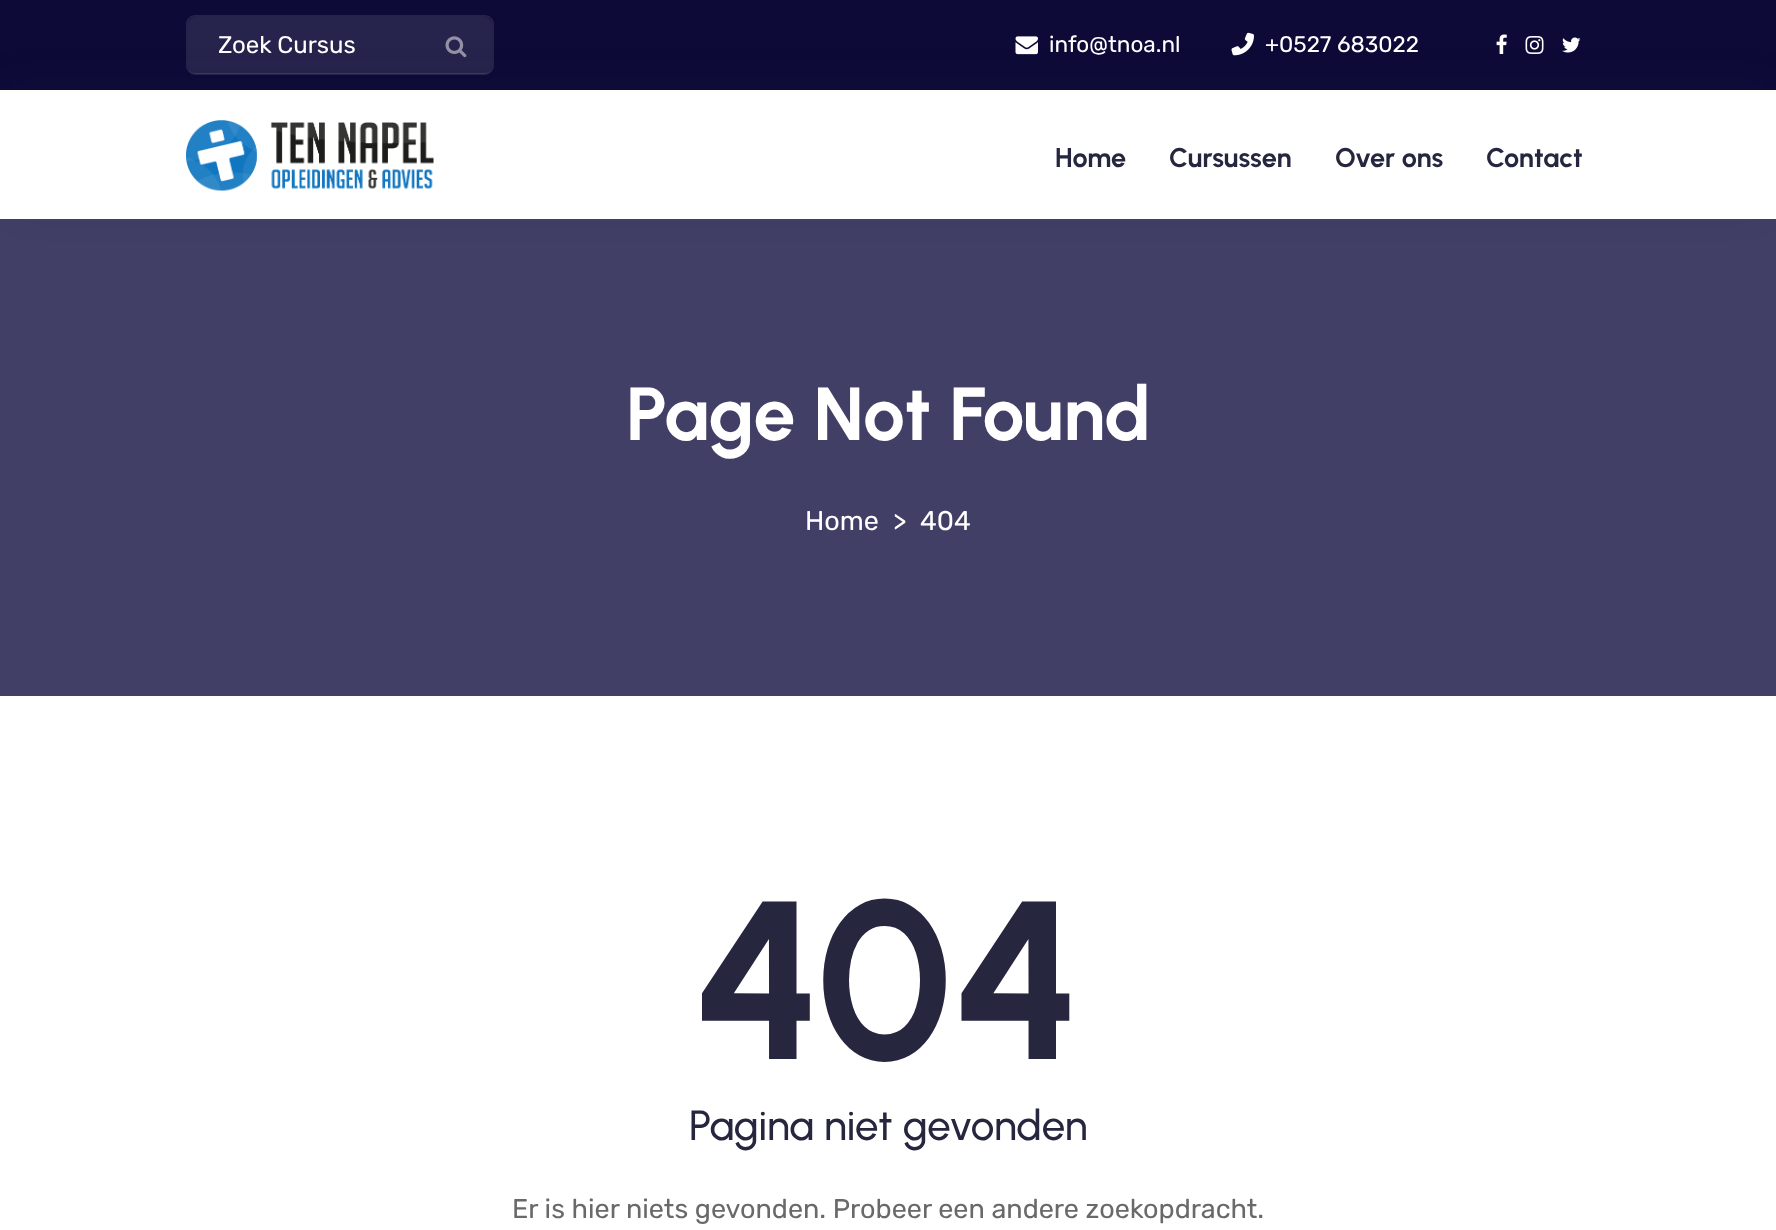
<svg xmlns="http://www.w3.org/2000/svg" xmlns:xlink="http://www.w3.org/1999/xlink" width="1776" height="1230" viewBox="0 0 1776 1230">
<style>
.cls-1{font:300 24px Rubik;fill:#ffffff}
.cls-2{font:300 22.5px Rubik;fill:#ffffff}
.cls-3{font:bold 27px Urbanist;fill:#26263f}
.cls-4{font:bold 75px Urbanist;fill:#ffffff}
.cls-5{font:300 27px Rubik;fill:#ffffff}
.cls-6{font:bold 225px Urbanist;fill:#26263f}
.cls-7{font:500 42px Urbanist;fill:#26263f}
.cls-8{font:300 27px Rubik;fill:#696969}
</style>
<rect width="100%" height="100%" fill="#ffffff"/>
<rect fill="#0e0a38" x="0" y="0" width="1776" height="90"/>
<rect fill="#26234c" x="188" y="17" width="304" height="57" rx="8"/>
<rect fill="none" stroke="#ffffff" stroke-opacity="0.1" stroke-width="2" x="187" y="16" width="306" height="58" rx="8"/>
<image xlink:href="image0.png" x="445" y="36" width="22" height="22"/>
<image xlink:href="image1.png" x="1015" y="36" width="23" height="19"/>
<image xlink:href="image2.png" x="1231" y="32" width="23" height="24"/>
<image xlink:href="image3.png" x="1496" y="34" width="11" height="20"/>
<image xlink:href="image4.png" x="1525" y="36" width="19" height="18"/>
<image xlink:href="image5.png" x="1562" y="37" width="19" height="16"/>
<rect fill="#333333" fill-opacity="0.1" filter="blur(22.5px)" x="0" y="90" width="1776" height="131"/>
<rect fill="#ffffff" x="0" y="90" width="1776" height="131"/>
<image xlink:href="image6.png" x="186" y="120" width="248" height="71"/>
<rect fill="#130f40" fill-opacity="0.8" x="0" y="219" width="1776" height="477"/>
<text class="cls-1" x="218" y="53">Zoek Cursus</text>
<text class="cls-2" x="1049" y="52">info@tnoa.nl</text>
<text class="cls-2" x="1265" y="52">+0527 683022</text>
<text class="cls-3" x="1055" y="167">Home</text>
<text class="cls-3" x="1169" y="167">Cursussen</text>
<text class="cls-3" x="1335" y="167">Over ons</text>
<text class="cls-3" x="1486" y="167">Contact</text>
<text class="cls-4" x="626" y="440">Page Not Found</text>
<text class="cls-5" x="805" y="530">Home</text>
<text class="cls-5" x="893" y="530">&gt;</text>
<text class="cls-5" x="920" y="530">404</text>
<text class="cls-6" x="693" y="1059">404</text>
<text class="cls-7" x="689" y="1140">Pagina niet gevonden</text>
<text class="cls-8" x="512" y="1218">Er is hier niets gevonden. Probeer een andere zoekopdracht.</text>
</svg>
